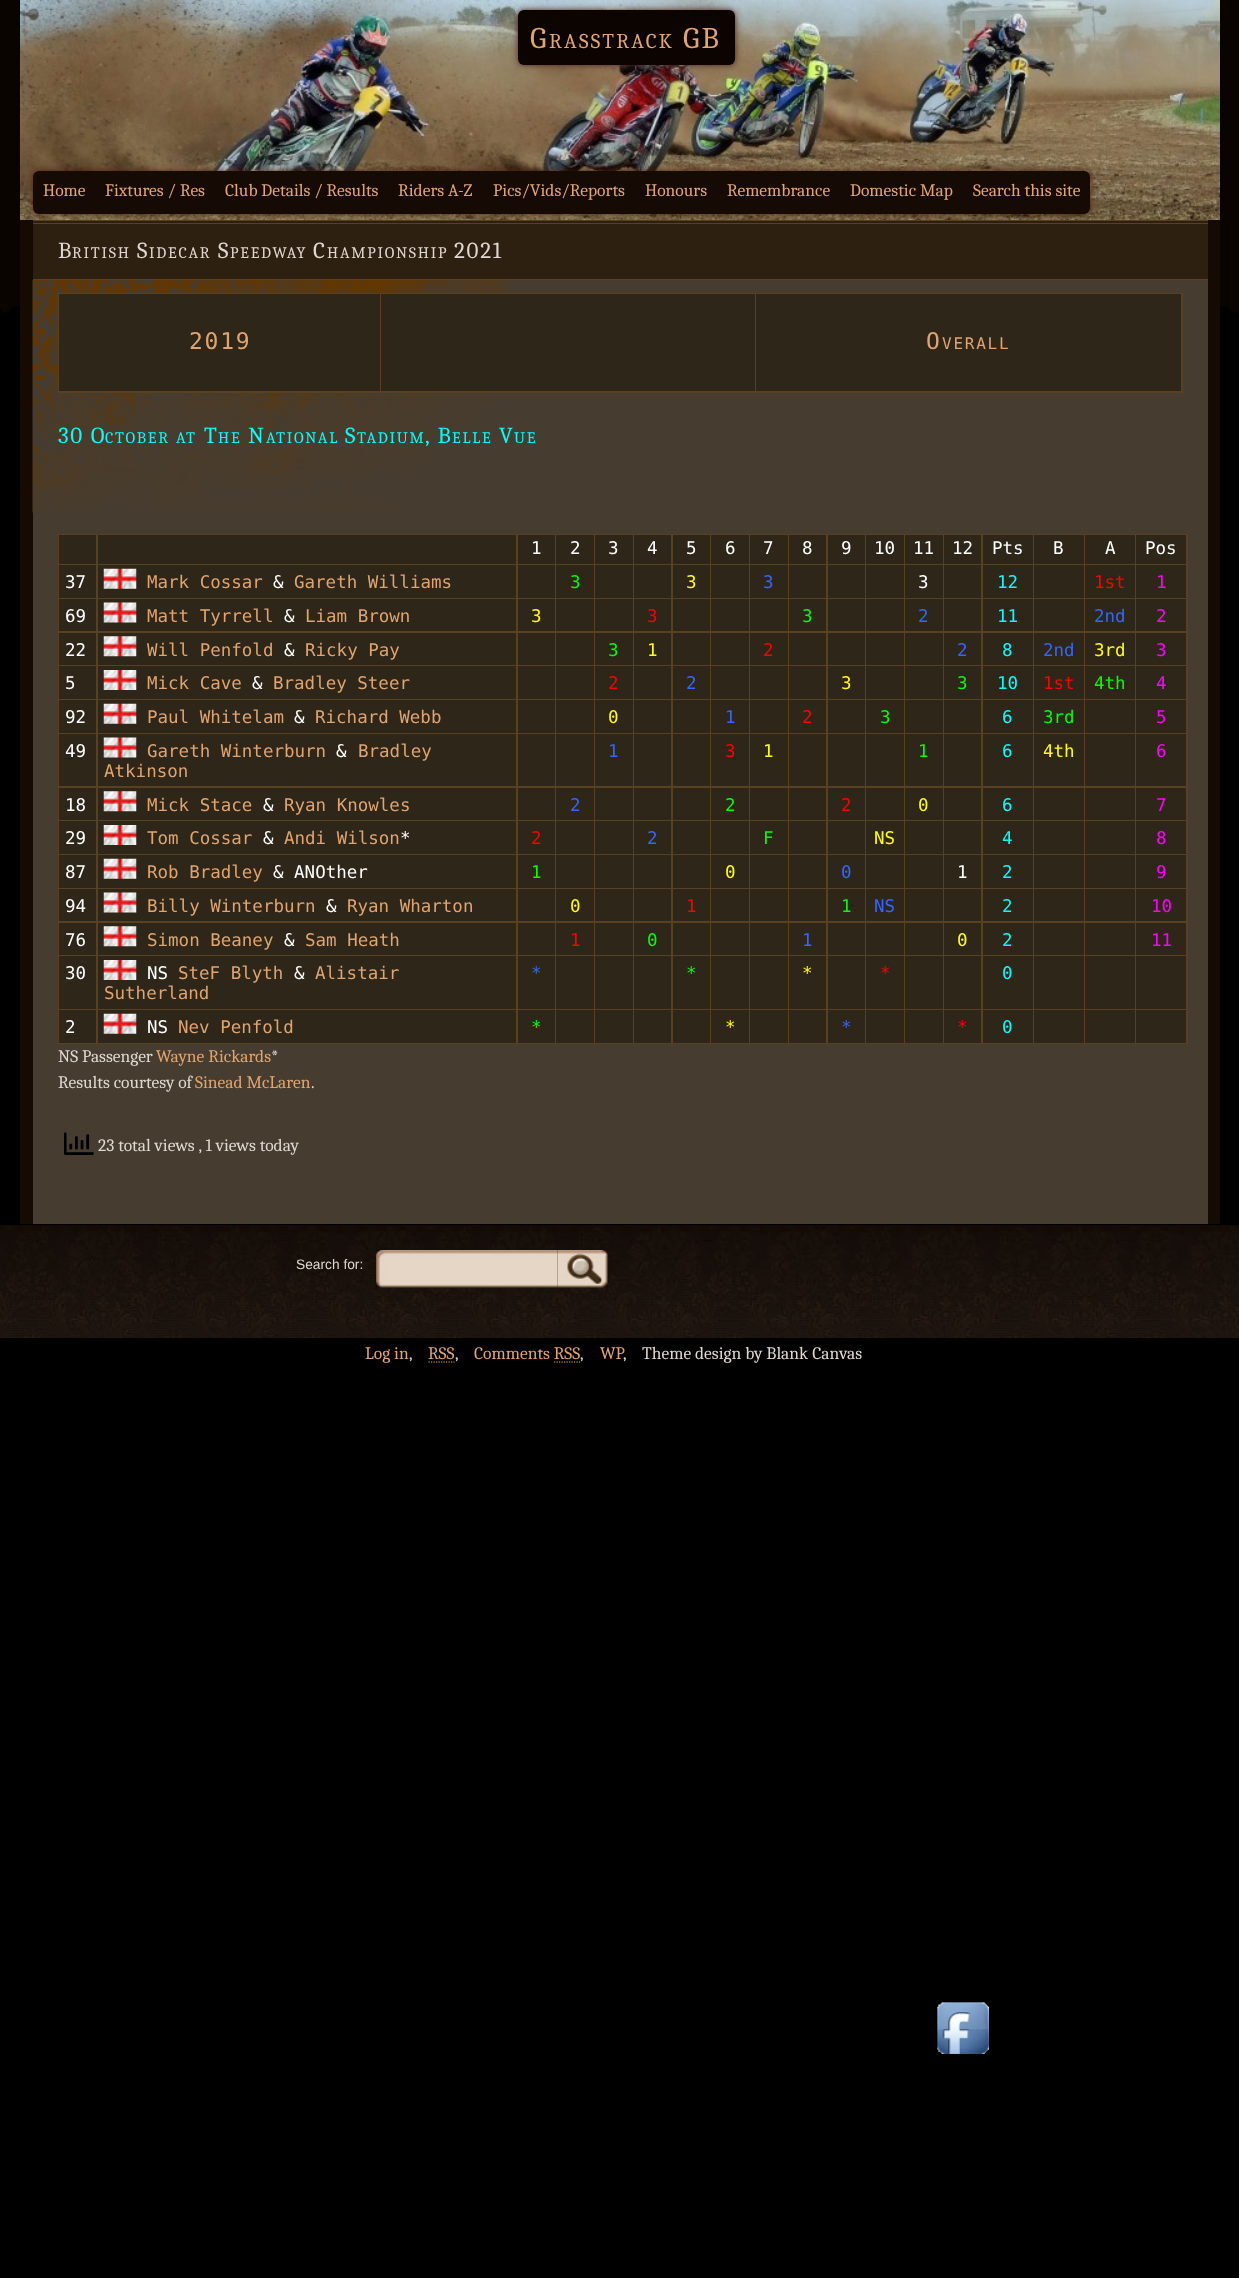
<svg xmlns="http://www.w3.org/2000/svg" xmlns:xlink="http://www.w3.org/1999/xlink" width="1239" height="2278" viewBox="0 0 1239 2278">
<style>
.cls-1{font:30px Caladea;letter-spacing:2.25px;fill:#e0a46f}
.cls-2{font:21px Caladea;letter-spacing:2.25px;fill:#e0a46f}
.cls-3{font:17.5px Caladea;fill:#e0a46f}
.cls-4{font:23px Caladea;letter-spacing:1.75px;fill:#dfd7d1}
.cls-5{font:16px Caladea;letter-spacing:1.75px;fill:#dfd7d1}
.cls-6{font:23px DejaVu Sans Mono;letter-spacing:1.75px;fill:#e0a46f}
.cls-7{font:16px DejaVu Sans Mono;letter-spacing:1.75px;fill:#e0a46f}
.cls-8{font:23px Caladea;letter-spacing:1.75px;fill:#00ffff}
.cls-9{font:16px Caladea;letter-spacing:1.75px;fill:#00ffff}
.cls-10{font:17.5px DejaVu Sans Mono;fill:#ffffff}
.cls-11{font:17.5px DejaVu Sans Mono;fill:#e0a46f}
.cls-12{font:17.5px DejaVu Sans Mono;fill:#00ff00}
.cls-13{font:17.5px DejaVu Sans Mono;fill:#ffff00}
.cls-14{font:17.5px DejaVu Sans Mono;fill:#3366ff}
.cls-15{font:17.5px DejaVu Sans Mono;fill:#00ffff}
.cls-16{font:17.5px DejaVu Sans Mono;fill:#ff0000}
.cls-17{font:17.5px DejaVu Sans Mono;fill:#ff00ff}
.cls-18{font:17.5px Caladea;fill:#dfd7d1}
.cls-19{font:13.75px Liberation Sans;fill:#dfd7d1}
</style>
<rect width="100%" height="100%" fill="#000000"/>
<image xlink:href="image0.png" x="0" y="0" width="1239" height="313"/>
<image xlink:href="image1.png" x="20" y="0" width="1200" height="220"/>
<rect fill="#501f0e" filter="blur(3px)" x="518" y="10" width="217" height="55" rx="6"/>
<rect fill="#0c0401" x="518" y="10" width="217" height="55" rx="6"/>
<rect fill="#150a04" x="20" y="220" width="1200" height="1004"/>
<rect fill="#2e2010" x="33" y="221" width="1175" height="58"/>
<rect fill="#594020" x="33" y="220" width="1175" height="1"/>
<rect fill="#594020" x="33" y="223" width="1175" height="1"/>
<rect fill="#501f0e" filter="blur(3px)" x="33" y="171" width="1057" height="43" rx="6"/>
<rect fill="#150a04" x="33" y="171" width="1057" height="43" rx="6"/>
<rect fill="#463c30" x="33" y="280" width="1175" height="944"/>
<image xlink:href="image2.png" x="32" y="280" width="479" height="233"/>
<rect fill="#594020" x="33" y="279" width="1175" height="1"/>
<rect fill="#594020" x="58" y="293" width="1125" height="100"/>
<rect fill="#2f261a" x="59" y="294" width="321" height="97"/>
<rect fill="#2f261a" x="381" y="294" width="374" height="97"/>
<rect fill="#2f261a" x="756" y="294" width="425" height="97"/>
<rect fill="#594020" x="58" y="534" width="1130" height="510"/>
<rect fill="#2f261a" x="59" y="535" width="37" height="29"/>
<rect fill="#2f261a" x="98" y="535" width="418" height="29"/>
<rect fill="#2f261a" x="518" y="535" width="37" height="29"/>
<rect fill="#2f261a" x="556" y="535" width="38" height="29"/>
<rect fill="#2f261a" x="595" y="535" width="38" height="29"/>
<rect fill="#2f261a" x="634" y="535" width="37" height="29"/>
<rect fill="#2f261a" x="673" y="535" width="37" height="29"/>
<rect fill="#2f261a" x="711" y="535" width="38" height="29"/>
<rect fill="#2f261a" x="750" y="535" width="38" height="29"/>
<rect fill="#2f261a" x="789" y="535" width="37" height="29"/>
<rect fill="#2f261a" x="828" y="535" width="37" height="29"/>
<rect fill="#2f261a" x="866" y="535" width="38" height="29"/>
<rect fill="#2f261a" x="905" y="535" width="38" height="29"/>
<rect fill="#2f261a" x="944" y="535" width="37" height="29"/>
<rect fill="#2f261a" x="983" y="535" width="50" height="29"/>
<rect fill="#2f261a" x="1034" y="535" width="50" height="29"/>
<rect fill="#2f261a" x="1085" y="535" width="50" height="29"/>
<rect fill="#2f261a" x="1136" y="535" width="50" height="29"/>
<rect fill="#2f261a" x="59" y="565" width="37" height="33"/>
<rect fill="#2f261a" x="98" y="565" width="418" height="33"/>
<image xlink:href="image3.png" x="103" y="568" width="34" height="21"/>
<rect fill="#2f261a" x="518" y="565" width="37" height="33"/>
<rect fill="#2f261a" x="556" y="565" width="38" height="33"/>
<rect fill="#2f261a" x="595" y="565" width="38" height="33"/>
<rect fill="#2f261a" x="634" y="565" width="37" height="33"/>
<rect fill="#2f261a" x="673" y="565" width="37" height="33"/>
<rect fill="#2f261a" x="711" y="565" width="38" height="33"/>
<rect fill="#2f261a" x="750" y="565" width="38" height="33"/>
<rect fill="#2f261a" x="789" y="565" width="37" height="33"/>
<rect fill="#2f261a" x="828" y="565" width="37" height="33"/>
<rect fill="#2f261a" x="866" y="565" width="38" height="33"/>
<rect fill="#2f261a" x="905" y="565" width="38" height="33"/>
<rect fill="#2f261a" x="944" y="565" width="37" height="33"/>
<rect fill="#2f261a" x="983" y="565" width="50" height="33"/>
<rect fill="#2f261a" x="1034" y="565" width="50" height="33"/>
<rect fill="#2f261a" x="1085" y="565" width="50" height="33"/>
<rect fill="#2f261a" x="1136" y="565" width="50" height="33"/>
<rect fill="#2f261a" x="59" y="599" width="37" height="32"/>
<rect fill="#2f261a" x="98" y="599" width="418" height="32"/>
<image xlink:href="image4.png" x="103" y="602" width="34" height="21"/>
<rect fill="#2f261a" x="518" y="599" width="37" height="32"/>
<rect fill="#2f261a" x="556" y="599" width="38" height="32"/>
<rect fill="#2f261a" x="595" y="599" width="38" height="32"/>
<rect fill="#2f261a" x="634" y="599" width="37" height="32"/>
<rect fill="#2f261a" x="673" y="599" width="37" height="32"/>
<rect fill="#2f261a" x="711" y="599" width="38" height="32"/>
<rect fill="#2f261a" x="750" y="599" width="38" height="32"/>
<rect fill="#2f261a" x="789" y="599" width="37" height="32"/>
<rect fill="#2f261a" x="828" y="599" width="37" height="32"/>
<rect fill="#2f261a" x="866" y="599" width="38" height="32"/>
<rect fill="#2f261a" x="905" y="599" width="38" height="32"/>
<rect fill="#2f261a" x="944" y="599" width="37" height="32"/>
<rect fill="#2f261a" x="983" y="599" width="50" height="32"/>
<rect fill="#2f261a" x="1034" y="599" width="50" height="32"/>
<rect fill="#2f261a" x="1085" y="599" width="50" height="32"/>
<rect fill="#2f261a" x="1136" y="599" width="50" height="32"/>
<rect fill="#2f261a" x="59" y="633" width="37" height="32"/>
<rect fill="#2f261a" x="98" y="633" width="418" height="32"/>
<image xlink:href="image5.png" x="103" y="636" width="34" height="21"/>
<rect fill="#2f261a" x="518" y="633" width="37" height="32"/>
<rect fill="#2f261a" x="556" y="633" width="38" height="32"/>
<rect fill="#2f261a" x="595" y="633" width="38" height="32"/>
<rect fill="#2f261a" x="634" y="633" width="37" height="32"/>
<rect fill="#2f261a" x="673" y="633" width="37" height="32"/>
<rect fill="#2f261a" x="711" y="633" width="38" height="32"/>
<rect fill="#2f261a" x="750" y="633" width="38" height="32"/>
<rect fill="#2f261a" x="789" y="633" width="37" height="32"/>
<rect fill="#2f261a" x="828" y="633" width="37" height="32"/>
<rect fill="#2f261a" x="866" y="633" width="38" height="32"/>
<rect fill="#2f261a" x="905" y="633" width="38" height="32"/>
<rect fill="#2f261a" x="944" y="633" width="37" height="32"/>
<rect fill="#2f261a" x="983" y="633" width="50" height="32"/>
<rect fill="#2f261a" x="1034" y="633" width="50" height="32"/>
<rect fill="#2f261a" x="1085" y="633" width="50" height="32"/>
<rect fill="#2f261a" x="1136" y="633" width="50" height="32"/>
<rect fill="#2f261a" x="59" y="666" width="37" height="33"/>
<rect fill="#2f261a" x="98" y="666" width="418" height="33"/>
<image xlink:href="image6.png" x="103" y="670" width="34" height="20"/>
<rect fill="#2f261a" x="518" y="666" width="37" height="33"/>
<rect fill="#2f261a" x="556" y="666" width="38" height="33"/>
<rect fill="#2f261a" x="595" y="666" width="38" height="33"/>
<rect fill="#2f261a" x="634" y="666" width="37" height="33"/>
<rect fill="#2f261a" x="673" y="666" width="37" height="33"/>
<rect fill="#2f261a" x="711" y="666" width="38" height="33"/>
<rect fill="#2f261a" x="750" y="666" width="38" height="33"/>
<rect fill="#2f261a" x="789" y="666" width="37" height="33"/>
<rect fill="#2f261a" x="828" y="666" width="37" height="33"/>
<rect fill="#2f261a" x="866" y="666" width="38" height="33"/>
<rect fill="#2f261a" x="905" y="666" width="38" height="33"/>
<rect fill="#2f261a" x="944" y="666" width="37" height="33"/>
<rect fill="#2f261a" x="983" y="666" width="50" height="33"/>
<rect fill="#2f261a" x="1034" y="666" width="50" height="33"/>
<rect fill="#2f261a" x="1085" y="666" width="50" height="33"/>
<rect fill="#2f261a" x="1136" y="666" width="50" height="33"/>
<rect fill="#2f261a" x="59" y="700" width="37" height="33"/>
<rect fill="#2f261a" x="98" y="700" width="418" height="33"/>
<image xlink:href="image3.png" x="103" y="703" width="34" height="21"/>
<rect fill="#2f261a" x="518" y="700" width="37" height="33"/>
<rect fill="#2f261a" x="556" y="700" width="38" height="33"/>
<rect fill="#2f261a" x="595" y="700" width="38" height="33"/>
<rect fill="#2f261a" x="634" y="700" width="37" height="33"/>
<rect fill="#2f261a" x="673" y="700" width="37" height="33"/>
<rect fill="#2f261a" x="711" y="700" width="38" height="33"/>
<rect fill="#2f261a" x="750" y="700" width="38" height="33"/>
<rect fill="#2f261a" x="789" y="700" width="37" height="33"/>
<rect fill="#2f261a" x="828" y="700" width="37" height="33"/>
<rect fill="#2f261a" x="866" y="700" width="38" height="33"/>
<rect fill="#2f261a" x="905" y="700" width="38" height="33"/>
<rect fill="#2f261a" x="944" y="700" width="37" height="33"/>
<rect fill="#2f261a" x="983" y="700" width="50" height="33"/>
<rect fill="#2f261a" x="1034" y="700" width="50" height="33"/>
<rect fill="#2f261a" x="1085" y="700" width="50" height="33"/>
<rect fill="#2f261a" x="1136" y="700" width="50" height="33"/>
<rect fill="#2f261a" x="59" y="734" width="37" height="52"/>
<rect fill="#2f261a" x="98" y="734" width="418" height="52"/>
<image xlink:href="image4.png" x="103" y="737" width="34" height="21"/>
<rect fill="#2f261a" x="518" y="734" width="37" height="52"/>
<rect fill="#2f261a" x="556" y="734" width="38" height="52"/>
<rect fill="#2f261a" x="595" y="734" width="38" height="52"/>
<rect fill="#2f261a" x="634" y="734" width="37" height="52"/>
<rect fill="#2f261a" x="673" y="734" width="37" height="52"/>
<rect fill="#2f261a" x="711" y="734" width="38" height="52"/>
<rect fill="#2f261a" x="750" y="734" width="38" height="52"/>
<rect fill="#2f261a" x="789" y="734" width="37" height="52"/>
<rect fill="#2f261a" x="828" y="734" width="37" height="52"/>
<rect fill="#2f261a" x="866" y="734" width="38" height="52"/>
<rect fill="#2f261a" x="905" y="734" width="38" height="52"/>
<rect fill="#2f261a" x="944" y="734" width="37" height="52"/>
<rect fill="#2f261a" x="983" y="734" width="50" height="52"/>
<rect fill="#2f261a" x="1034" y="734" width="50" height="52"/>
<rect fill="#2f261a" x="1085" y="734" width="50" height="52"/>
<rect fill="#2f261a" x="1136" y="734" width="50" height="52"/>
<rect fill="#2f261a" x="59" y="788" width="37" height="32"/>
<rect fill="#2f261a" x="98" y="788" width="418" height="32"/>
<image xlink:href="image5.png" x="103" y="791" width="34" height="21"/>
<rect fill="#2f261a" x="518" y="788" width="37" height="32"/>
<rect fill="#2f261a" x="556" y="788" width="38" height="32"/>
<rect fill="#2f261a" x="595" y="788" width="38" height="32"/>
<rect fill="#2f261a" x="634" y="788" width="37" height="32"/>
<rect fill="#2f261a" x="673" y="788" width="37" height="32"/>
<rect fill="#2f261a" x="711" y="788" width="38" height="32"/>
<rect fill="#2f261a" x="750" y="788" width="38" height="32"/>
<rect fill="#2f261a" x="789" y="788" width="37" height="32"/>
<rect fill="#2f261a" x="828" y="788" width="37" height="32"/>
<rect fill="#2f261a" x="866" y="788" width="38" height="32"/>
<rect fill="#2f261a" x="905" y="788" width="38" height="32"/>
<rect fill="#2f261a" x="944" y="788" width="37" height="32"/>
<rect fill="#2f261a" x="983" y="788" width="50" height="32"/>
<rect fill="#2f261a" x="1034" y="788" width="50" height="32"/>
<rect fill="#2f261a" x="1085" y="788" width="50" height="32"/>
<rect fill="#2f261a" x="1136" y="788" width="50" height="32"/>
<rect fill="#2f261a" x="59" y="821" width="37" height="33"/>
<rect fill="#2f261a" x="98" y="821" width="418" height="33"/>
<image xlink:href="image6.png" x="103" y="825" width="34" height="20"/>
<rect fill="#2f261a" x="518" y="821" width="37" height="33"/>
<rect fill="#2f261a" x="556" y="821" width="38" height="33"/>
<rect fill="#2f261a" x="595" y="821" width="38" height="33"/>
<rect fill="#2f261a" x="634" y="821" width="37" height="33"/>
<rect fill="#2f261a" x="673" y="821" width="37" height="33"/>
<rect fill="#2f261a" x="711" y="821" width="38" height="33"/>
<rect fill="#2f261a" x="750" y="821" width="38" height="33"/>
<rect fill="#2f261a" x="789" y="821" width="37" height="33"/>
<rect fill="#2f261a" x="828" y="821" width="37" height="33"/>
<rect fill="#2f261a" x="866" y="821" width="38" height="33"/>
<rect fill="#2f261a" x="905" y="821" width="38" height="33"/>
<rect fill="#2f261a" x="944" y="821" width="37" height="33"/>
<rect fill="#2f261a" x="983" y="821" width="50" height="33"/>
<rect fill="#2f261a" x="1034" y="821" width="50" height="33"/>
<rect fill="#2f261a" x="1085" y="821" width="50" height="33"/>
<rect fill="#2f261a" x="1136" y="821" width="50" height="33"/>
<rect fill="#2f261a" x="59" y="855" width="37" height="33"/>
<rect fill="#2f261a" x="98" y="855" width="418" height="33"/>
<image xlink:href="image3.png" x="103" y="858" width="34" height="21"/>
<rect fill="#2f261a" x="518" y="855" width="37" height="33"/>
<rect fill="#2f261a" x="556" y="855" width="38" height="33"/>
<rect fill="#2f261a" x="595" y="855" width="38" height="33"/>
<rect fill="#2f261a" x="634" y="855" width="37" height="33"/>
<rect fill="#2f261a" x="673" y="855" width="37" height="33"/>
<rect fill="#2f261a" x="711" y="855" width="38" height="33"/>
<rect fill="#2f261a" x="750" y="855" width="38" height="33"/>
<rect fill="#2f261a" x="789" y="855" width="37" height="33"/>
<rect fill="#2f261a" x="828" y="855" width="37" height="33"/>
<rect fill="#2f261a" x="866" y="855" width="38" height="33"/>
<rect fill="#2f261a" x="905" y="855" width="38" height="33"/>
<rect fill="#2f261a" x="944" y="855" width="37" height="33"/>
<rect fill="#2f261a" x="983" y="855" width="50" height="33"/>
<rect fill="#2f261a" x="1034" y="855" width="50" height="33"/>
<rect fill="#2f261a" x="1085" y="855" width="50" height="33"/>
<rect fill="#2f261a" x="1136" y="855" width="50" height="33"/>
<rect fill="#2f261a" x="59" y="889" width="37" height="32"/>
<rect fill="#2f261a" x="98" y="889" width="418" height="32"/>
<image xlink:href="image4.png" x="103" y="892" width="34" height="21"/>
<rect fill="#2f261a" x="518" y="889" width="37" height="32"/>
<rect fill="#2f261a" x="556" y="889" width="38" height="32"/>
<rect fill="#2f261a" x="595" y="889" width="38" height="32"/>
<rect fill="#2f261a" x="634" y="889" width="37" height="32"/>
<rect fill="#2f261a" x="673" y="889" width="37" height="32"/>
<rect fill="#2f261a" x="711" y="889" width="38" height="32"/>
<rect fill="#2f261a" x="750" y="889" width="38" height="32"/>
<rect fill="#2f261a" x="789" y="889" width="37" height="32"/>
<rect fill="#2f261a" x="828" y="889" width="37" height="32"/>
<rect fill="#2f261a" x="866" y="889" width="38" height="32"/>
<rect fill="#2f261a" x="905" y="889" width="38" height="32"/>
<rect fill="#2f261a" x="944" y="889" width="37" height="32"/>
<rect fill="#2f261a" x="983" y="889" width="50" height="32"/>
<rect fill="#2f261a" x="1034" y="889" width="50" height="32"/>
<rect fill="#2f261a" x="1085" y="889" width="50" height="32"/>
<rect fill="#2f261a" x="1136" y="889" width="50" height="32"/>
<rect fill="#2f261a" x="59" y="923" width="37" height="32"/>
<rect fill="#2f261a" x="98" y="923" width="418" height="32"/>
<image xlink:href="image5.png" x="103" y="926" width="34" height="21"/>
<rect fill="#2f261a" x="518" y="923" width="37" height="32"/>
<rect fill="#2f261a" x="556" y="923" width="38" height="32"/>
<rect fill="#2f261a" x="595" y="923" width="38" height="32"/>
<rect fill="#2f261a" x="634" y="923" width="37" height="32"/>
<rect fill="#2f261a" x="673" y="923" width="37" height="32"/>
<rect fill="#2f261a" x="711" y="923" width="38" height="32"/>
<rect fill="#2f261a" x="750" y="923" width="38" height="32"/>
<rect fill="#2f261a" x="789" y="923" width="37" height="32"/>
<rect fill="#2f261a" x="828" y="923" width="37" height="32"/>
<rect fill="#2f261a" x="866" y="923" width="38" height="32"/>
<rect fill="#2f261a" x="905" y="923" width="38" height="32"/>
<rect fill="#2f261a" x="944" y="923" width="37" height="32"/>
<rect fill="#2f261a" x="983" y="923" width="50" height="32"/>
<rect fill="#2f261a" x="1034" y="923" width="50" height="32"/>
<rect fill="#2f261a" x="1085" y="923" width="50" height="32"/>
<rect fill="#2f261a" x="1136" y="923" width="50" height="32"/>
<rect fill="#2f261a" x="59" y="956" width="37" height="53"/>
<rect fill="#2f261a" x="98" y="956" width="418" height="53"/>
<image xlink:href="image6.png" x="103" y="960" width="34" height="20"/>
<rect fill="#2f261a" x="518" y="956" width="37" height="53"/>
<rect fill="#2f261a" x="556" y="956" width="38" height="53"/>
<rect fill="#2f261a" x="595" y="956" width="38" height="53"/>
<rect fill="#2f261a" x="634" y="956" width="37" height="53"/>
<rect fill="#2f261a" x="673" y="956" width="37" height="53"/>
<rect fill="#2f261a" x="711" y="956" width="38" height="53"/>
<rect fill="#2f261a" x="750" y="956" width="38" height="53"/>
<rect fill="#2f261a" x="789" y="956" width="37" height="53"/>
<rect fill="#2f261a" x="828" y="956" width="37" height="53"/>
<rect fill="#2f261a" x="866" y="956" width="38" height="53"/>
<rect fill="#2f261a" x="905" y="956" width="38" height="53"/>
<rect fill="#2f261a" x="944" y="956" width="37" height="53"/>
<rect fill="#2f261a" x="983" y="956" width="50" height="53"/>
<rect fill="#2f261a" x="1034" y="956" width="50" height="53"/>
<rect fill="#2f261a" x="1085" y="956" width="50" height="53"/>
<rect fill="#2f261a" x="1136" y="956" width="50" height="53"/>
<rect fill="#2f261a" x="59" y="1010" width="37" height="33"/>
<rect fill="#2f261a" x="98" y="1010" width="418" height="33"/>
<image xlink:href="image3.png" x="103" y="1013" width="34" height="21"/>
<rect fill="#2f261a" x="518" y="1010" width="37" height="33"/>
<rect fill="#2f261a" x="556" y="1010" width="38" height="33"/>
<rect fill="#2f261a" x="595" y="1010" width="38" height="33"/>
<rect fill="#2f261a" x="634" y="1010" width="37" height="33"/>
<rect fill="#2f261a" x="673" y="1010" width="37" height="33"/>
<rect fill="#2f261a" x="711" y="1010" width="38" height="33"/>
<rect fill="#2f261a" x="750" y="1010" width="38" height="33"/>
<rect fill="#2f261a" x="789" y="1010" width="37" height="33"/>
<rect fill="#2f261a" x="828" y="1010" width="37" height="33"/>
<rect fill="#2f261a" x="866" y="1010" width="38" height="33"/>
<rect fill="#2f261a" x="905" y="1010" width="38" height="33"/>
<rect fill="#2f261a" x="944" y="1010" width="37" height="33"/>
<rect fill="#2f261a" x="983" y="1010" width="50" height="33"/>
<rect fill="#2f261a" x="1034" y="1010" width="50" height="33"/>
<rect fill="#2f261a" x="1085" y="1010" width="50" height="33"/>
<rect fill="#2f261a" x="1136" y="1010" width="50" height="33"/>
<image xlink:href="image7.png" x="64" y="1132" width="30" height="23"/>
<image xlink:href="image8.png" x="0" y="1225" width="1239" height="113"/>
<image xlink:href="image9.png" x="376" y="1250" width="182" height="38"/>
<image xlink:href="image10.png" x="557" y="1250" width="51" height="38"/>
<path fill="none" stroke="#e0a46f" stroke-width="1.2" stroke-dasharray="1.25 1.25" d="M428.5 1362H454.5"/>
<path fill="none" stroke="#e0a46f" stroke-width="1.2" stroke-dasharray="1.25 1.25" d="M554 1362H580"/>
<image xlink:href="image11.png" x="937" y="2002" width="52" height="52"/>
<text class="cls-1" x="530" y="48">G</text>
<text class="cls-2" x="549" y="48">RASSTRACK</text>
<text class="cls-1" x="683" y="48">GB</text>
<text class="cls-3" x="43" y="196">Home</text>
<text class="cls-3" x="105" y="196">Fixtures / Res</text>
<text class="cls-3" x="225" y="196">Club Details / Results</text>
<text class="cls-3" x="398" y="196">Riders A-Z</text>
<text class="cls-3" x="493" y="196">Pics/Vids/Reports</text>
<text class="cls-3" x="645" y="196">Honours</text>
<text class="cls-3" x="727" y="196">Remembrance</text>
<text class="cls-3" x="850" y="196">Domestic Map</text>
<text class="cls-3" x="973" y="196">Search this site</text>
<text class="cls-4" x="58" y="258">B</text>
<text class="cls-5" x="72" y="258">RITISH</text>
<text class="cls-4" x="137" y="258">S</text>
<text class="cls-5" x="149" y="258">IDECAR</text>
<text class="cls-4" x="218" y="258">S</text>
<text class="cls-5" x="230" y="258">PEEDWAY</text>
<text class="cls-4" x="313" y="258">C</text>
<text class="cls-5" x="327" y="258">HAMPIONSHIP</text>
<text class="cls-4" x="454" y="258">2021</text>
<text class="cls-6" x="189" y="349">2019</text>
<text class="cls-6" x="926" y="349">O</text>
<text class="cls-7" x="942" y="349">VERALL</text>
<text class="cls-8" x="58" y="443">30 O</text>
<text class="cls-9" x="105" y="443">CTOBER</text>
<text class="cls-9" x="176" y="443">AT</text>
<text class="cls-8" x="204" y="443">T</text>
<text class="cls-9" x="218" y="443">HE</text>
<text class="cls-8" x="248" y="443">N</text>
<text class="cls-9" x="266" y="443">ATIONAL</text>
<text class="cls-8" x="345" y="443">S</text>
<text class="cls-9" x="357" y="443">TADIUM</text>
<text class="cls-8" x="425" y="443">, B</text>
<text class="cls-9" x="452" y="443">ELLE</text>
<text class="cls-8" x="499" y="443">V</text>
<text class="cls-9" x="514" y="443">UE</text>
<text class="cls-10" x="531" y="554">1</text>
<text class="cls-10" x="570" y="554">2</text>
<text class="cls-10" x="608" y="554">3</text>
<text class="cls-10" x="647" y="554">4</text>
<text class="cls-10" x="686" y="554">5</text>
<text class="cls-10" x="725" y="554">6</text>
<text class="cls-10" x="763" y="554">7</text>
<text class="cls-10" x="802" y="554">8</text>
<text class="cls-10" x="841" y="554">9</text>
<text class="cls-10" x="874" y="554">10</text>
<text class="cls-10" x="913" y="554">11</text>
<text class="cls-10" x="952" y="554">12</text>
<text class="cls-10" x="992" y="554">Pts</text>
<text class="cls-10" x="1053" y="554">B</text>
<text class="cls-10" x="1105" y="554">A</text>
<text class="cls-10" x="1145" y="554">Pos</text>
<text class="cls-10" x="65" y="588">37</text>
<text class="cls-11" x="147" y="588">Mark Cossar</text>
<text class="cls-10" x="273" y="588">&amp;</text>
<text class="cls-11" x="294" y="588">Gareth Williams</text>
<text class="cls-12" x="570" y="588">3</text>
<text class="cls-13" x="686" y="588">3</text>
<text class="cls-14" x="763" y="588">3</text>
<text class="cls-10" x="918" y="588">3</text>
<text class="cls-15" x="997" y="588">12</text>
<text class="cls-16" x="1094" y="588">1st</text>
<text class="cls-17" x="1156" y="588">1</text>
<text class="cls-10" x="65" y="622">69</text>
<text class="cls-11" x="147" y="622">Matt Tyrrell</text>
<text class="cls-10" x="284" y="622">&amp;</text>
<text class="cls-11" x="305" y="622">Liam Brown</text>
<text class="cls-13" x="531" y="622">3</text>
<text class="cls-16" x="647" y="622">3</text>
<text class="cls-12" x="802" y="622">3</text>
<text class="cls-14" x="918" y="622">2</text>
<text class="cls-15" x="997" y="622">11</text>
<text class="cls-14" x="1094" y="622">2nd</text>
<text class="cls-17" x="1156" y="622">2</text>
<text class="cls-10" x="65" y="656">22</text>
<text class="cls-11" x="147" y="656">Will Penfold</text>
<text class="cls-10" x="284" y="656">&amp;</text>
<text class="cls-11" x="305" y="656">Ricky Pay</text>
<text class="cls-12" x="608" y="656">3</text>
<text class="cls-13" x="647" y="656">1</text>
<text class="cls-16" x="763" y="656">2</text>
<text class="cls-14" x="957" y="656">2</text>
<text class="cls-15" x="1002" y="656">8</text>
<text class="cls-14" x="1043" y="656">2nd</text>
<text class="cls-13" x="1094" y="656">3rd</text>
<text class="cls-17" x="1156" y="656">3</text>
<text class="cls-10" x="65" y="689">5</text>
<text class="cls-11" x="147" y="689">Mick Cave</text>
<text class="cls-10" x="252" y="689">&amp;</text>
<text class="cls-11" x="273" y="689">Bradley Steer</text>
<text class="cls-16" x="608" y="689">2</text>
<text class="cls-14" x="686" y="689">2</text>
<text class="cls-13" x="841" y="689">3</text>
<text class="cls-12" x="957" y="689">3</text>
<text class="cls-15" x="997" y="689">10</text>
<text class="cls-16" x="1043" y="689">1st</text>
<text class="cls-12" x="1094" y="689">4th</text>
<text class="cls-17" x="1156" y="689">4</text>
<text class="cls-10" x="65" y="723">92</text>
<text class="cls-11" x="147" y="723">Paul Whitelam</text>
<text class="cls-10" x="294" y="723">&amp;</text>
<text class="cls-11" x="315" y="723">Richard Webb</text>
<text class="cls-13" x="608" y="723">0</text>
<text class="cls-14" x="725" y="723">1</text>
<text class="cls-16" x="802" y="723">2</text>
<text class="cls-12" x="880" y="723">3</text>
<text class="cls-15" x="1002" y="723">6</text>
<text class="cls-12" x="1043" y="723">3rd</text>
<text class="cls-17" x="1156" y="723">5</text>
<text class="cls-10" x="65" y="757">49</text>
<text class="cls-11" x="147" y="757">Gareth Winterburn</text>
<text class="cls-10" x="336" y="757">&amp;</text>
<text class="cls-11" x="358" y="757">Bradley</text>
<text class="cls-11" x="104" y="777">Atkinson</text>
<text class="cls-14" x="608" y="757">1</text>
<text class="cls-16" x="725" y="757">3</text>
<text class="cls-13" x="763" y="757">1</text>
<text class="cls-12" x="918" y="757">1</text>
<text class="cls-15" x="1002" y="757">6</text>
<text class="cls-13" x="1043" y="757">4th</text>
<text class="cls-17" x="1156" y="757">6</text>
<text class="cls-10" x="65" y="811">18</text>
<text class="cls-11" x="147" y="811">Mick Stace</text>
<text class="cls-10" x="263" y="811">&amp;</text>
<text class="cls-11" x="284" y="811">Ryan Knowles</text>
<text class="cls-14" x="570" y="811">2</text>
<text class="cls-12" x="725" y="811">2</text>
<text class="cls-16" x="841" y="811">2</text>
<text class="cls-13" x="918" y="811">0</text>
<text class="cls-15" x="1002" y="811">6</text>
<text class="cls-17" x="1156" y="811">7</text>
<text class="cls-10" x="65" y="844">29</text>
<text class="cls-11" x="147" y="844">Tom Cossar</text>
<text class="cls-10" x="263" y="844">&amp;</text>
<text class="cls-11" x="284" y="844">Andi Wilson</text>
<text class="cls-10" x="400" y="844">*</text>
<text class="cls-16" x="531" y="844">2</text>
<text class="cls-14" x="647" y="844">2</text>
<text class="cls-12" x="763" y="844">F</text>
<text class="cls-13" x="874" y="844">NS</text>
<text class="cls-15" x="1002" y="844">4</text>
<text class="cls-17" x="1156" y="844">8</text>
<text class="cls-10" x="65" y="878">87</text>
<text class="cls-11" x="147" y="878">Rob Bradley</text>
<text class="cls-10" x="273" y="878">&amp; ANOther</text>
<text class="cls-12" x="531" y="878">1</text>
<text class="cls-13" x="725" y="878">0</text>
<text class="cls-14" x="841" y="878">0</text>
<text class="cls-10" x="957" y="878">1</text>
<text class="cls-15" x="1002" y="878">2</text>
<text class="cls-17" x="1156" y="878">9</text>
<text class="cls-10" x="65" y="912">94</text>
<text class="cls-11" x="147" y="912">Billy Winterburn</text>
<text class="cls-10" x="326" y="912">&amp;</text>
<text class="cls-11" x="347" y="912">Ryan Wharton</text>
<text class="cls-13" x="570" y="912">0</text>
<text class="cls-16" x="686" y="912">1</text>
<text class="cls-12" x="841" y="912">1</text>
<text class="cls-14" x="874" y="912">NS</text>
<text class="cls-15" x="1002" y="912">2</text>
<text class="cls-17" x="1151" y="912">10</text>
<text class="cls-10" x="65" y="946">76</text>
<text class="cls-11" x="147" y="946">Simon Beaney</text>
<text class="cls-10" x="284" y="946">&amp;</text>
<text class="cls-11" x="305" y="946">Sam Heath</text>
<text class="cls-16" x="570" y="946">1</text>
<text class="cls-12" x="647" y="946">0</text>
<text class="cls-14" x="802" y="946">1</text>
<text class="cls-13" x="957" y="946">0</text>
<text class="cls-15" x="1002" y="946">2</text>
<text class="cls-17" x="1151" y="946">11</text>
<text class="cls-10" x="65" y="979">30</text>
<text class="cls-10" x="147" y="979">NS</text>
<text class="cls-11" x="178" y="979">SteF Blyth</text>
<text class="cls-10" x="294" y="979">&amp;</text>
<text class="cls-11" x="315" y="979">Alistair</text>
<text class="cls-11" x="104" y="999">Sutherland</text>
<text class="cls-14" x="531" y="979">*</text>
<text class="cls-12" x="686" y="979">*</text>
<text class="cls-13" x="802" y="979">*</text>
<text class="cls-16" x="880" y="979">*</text>
<text class="cls-15" x="1002" y="979">0</text>
<text class="cls-10" x="65" y="1033">2</text>
<text class="cls-10" x="147" y="1033">NS</text>
<text class="cls-11" x="178" y="1033">Nev Penfold</text>
<text class="cls-12" x="531" y="1033">*</text>
<text class="cls-13" x="725" y="1033">*</text>
<text class="cls-14" x="841" y="1033">*</text>
<text class="cls-16" x="957" y="1033">*</text>
<text class="cls-15" x="1002" y="1033">0</text>
<text class="cls-18" x="58" y="1062">NS Passenger</text>
<text class="cls-3" x="156" y="1062">Wayne Rickards</text>
<text class="cls-18" x="271" y="1062">*</text>
<text class="cls-18" x="58" y="1088">Results courtesy of</text>
<text class="cls-3" x="195" y="1088">Sinead McLaren</text>
<text class="cls-18" x="311" y="1088">.</text>
<text class="cls-18" x="98" y="1151">23 total views , 1 views today</text>
<text class="cls-19" x="296" y="1269">Search for:</text>
<text class="cls-3" x="365" y="1359">Log in</text>
<text class="cls-3" x="428" y="1359">RSS</text>
<text class="cls-3" x="474" y="1359">Comments RSS</text>
<text class="cls-3" x="600" y="1359">WP</text>
<text class="cls-18" x="642" y="1359">Theme design by Blank Canvas</text>
<text class="cls-18" x="409" y="1359">,</text>
<text class="cls-18" x="455" y="1359">,</text>
<text class="cls-18" x="580" y="1359">,</text>
<text class="cls-18" x="623" y="1359">,</text>
</svg>
